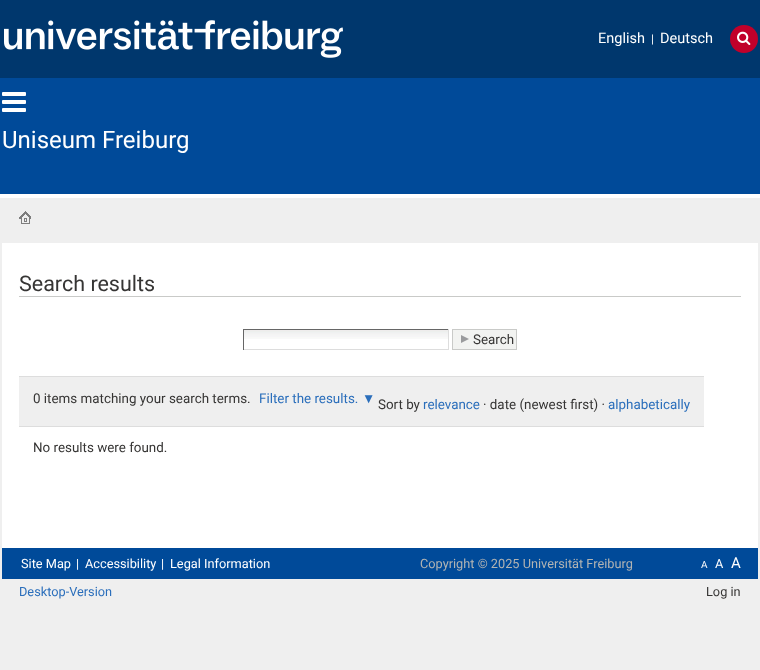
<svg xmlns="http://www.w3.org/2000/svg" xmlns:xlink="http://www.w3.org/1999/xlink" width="760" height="670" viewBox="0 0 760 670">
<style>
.cls-1{font:14.5px Roboto;fill:#ffffff}
.cls-2{font:12px Roboto;fill:#ffffff}
.cls-3{font:24px Roboto;fill:#ffffff}
.cls-4{font:21.5px Roboto;fill:#363534}
.cls-5{font:13.4px Roboto;fill:#363534}
.cls-6{font:13.4px Roboto;fill:#2a6ebb}
.cls-7{font:13.4px Liberation Sans;fill:#2a6ebb}
.cls-8{font:12.75px Roboto;fill:#ffffff}
.cls-9{font:12.75px Roboto;fill:#b2b4b3}
.cls-10{font:10px Roboto;fill:#ffffff}
.cls-11{font:15px Roboto;fill:#ffffff}
.cls-12{font:12.75px Roboto;fill:#2a6ebb}
.cls-13{font:12.75px Roboto;fill:#363534}
</style>
<rect width="100%" height="100%" fill="#efefef"/>
<rect fill="#004a99" x="0" y="78" width="760" height="116"/>
<rect fill="#ffffff" x="0" y="194" width="760" height="4"/>
<rect fill="#00376d" x="0" y="0" width="760" height="78"/>
<image xlink:href="image0.png" x="4" y="20" width="339" height="38"/>
<circle fill="#c1002a" cx="744" cy="39" r="14"/>
<image xlink:href="image1.png" x="737" y="31" width="14" height="14"/>
<image xlink:href="image2.png" x="2" y="92" width="24" height="20"/>
<rect fill="#ffffff" x="2" y="243" width="756" height="305"/>
<image xlink:href="image3.png" x="19" y="211" width="12" height="13"/>
<rect fill="#c9cac8" x="19" y="296" width="722" height="1"/>
<image xlink:href="image4.png" x="244" y="330" width="204" height="9"/>
<rect fill="#666666" x="243" y="329" width="206" height="1"/>
<rect fill="#dddddd" x="448" y="329" width="1" height="21"/>
<rect fill="#dddddd" x="243" y="349" width="206" height="1"/>
<rect fill="#666666" x="243" y="329" width="1" height="21"/>
<rect fill="#f2f3f1" x="453" y="330" width="63" height="19"/>
<image xlink:href="image5.png" x="461" y="335" width="8" height="8"/>
<rect fill="none" stroke="#c9cac8" x="452.5" y="329.5" width="64" height="20"/>
<rect fill="#efefef" x="19" y="377" width="685" height="49"/>
<rect fill="#dddddd" x="19" y="376" width="685" height="1"/>
<rect fill="#dddddd" x="19" y="426" width="685" height="1"/>
<rect fill="#004a99" x="2" y="548" width="756" height="31"/>
<text class="cls-1" x="598" y="43">English</text>
<text class="cls-2" x="651" y="43">|</text>
<text class="cls-1" x="660" y="43">Deutsch</text>
<text class="cls-3" x="2" y="148">Uniseum Freiburg</text>
<text class="cls-4" x="19" y="291">Search results</text>
<text class="cls-5" x="473" y="344">Search</text>
<text class="cls-5" x="33" y="403">0 items matching your search terms.</text>
<text class="cls-6" x="259" y="403">Filter the results.</text>
<text class="cls-7" x="362" y="403">▼</text>
<text class="cls-5" x="378" y="409">Sort by</text>
<text class="cls-6" x="423" y="409">relevance</text>
<text class="cls-5" x="483" y="409">· date (newest first) ·</text>
<text class="cls-6" x="608" y="409">alphabetically</text>
<text class="cls-5" x="33" y="452">No results were found.</text>
<text class="cls-8" x="21" y="568">Site Map</text>
<text class="cls-8" x="76" y="568">|</text>
<text class="cls-8" x="85" y="568">Accessibility</text>
<text class="cls-8" x="161" y="568">|</text>
<text class="cls-8" x="170" y="568">Legal Information</text>
<text class="cls-9" x="420" y="568">Copyright © 2025 Universität Freiburg</text>
<text class="cls-10" x="701" y="568">A</text>
<text class="cls-8" x="715" y="568">A</text>
<text class="cls-11" x="731" y="568">A</text>
<text class="cls-12" x="19" y="596">Desktop-Version</text>
<text class="cls-13" x="706" y="596">Log in</text>
</svg>
